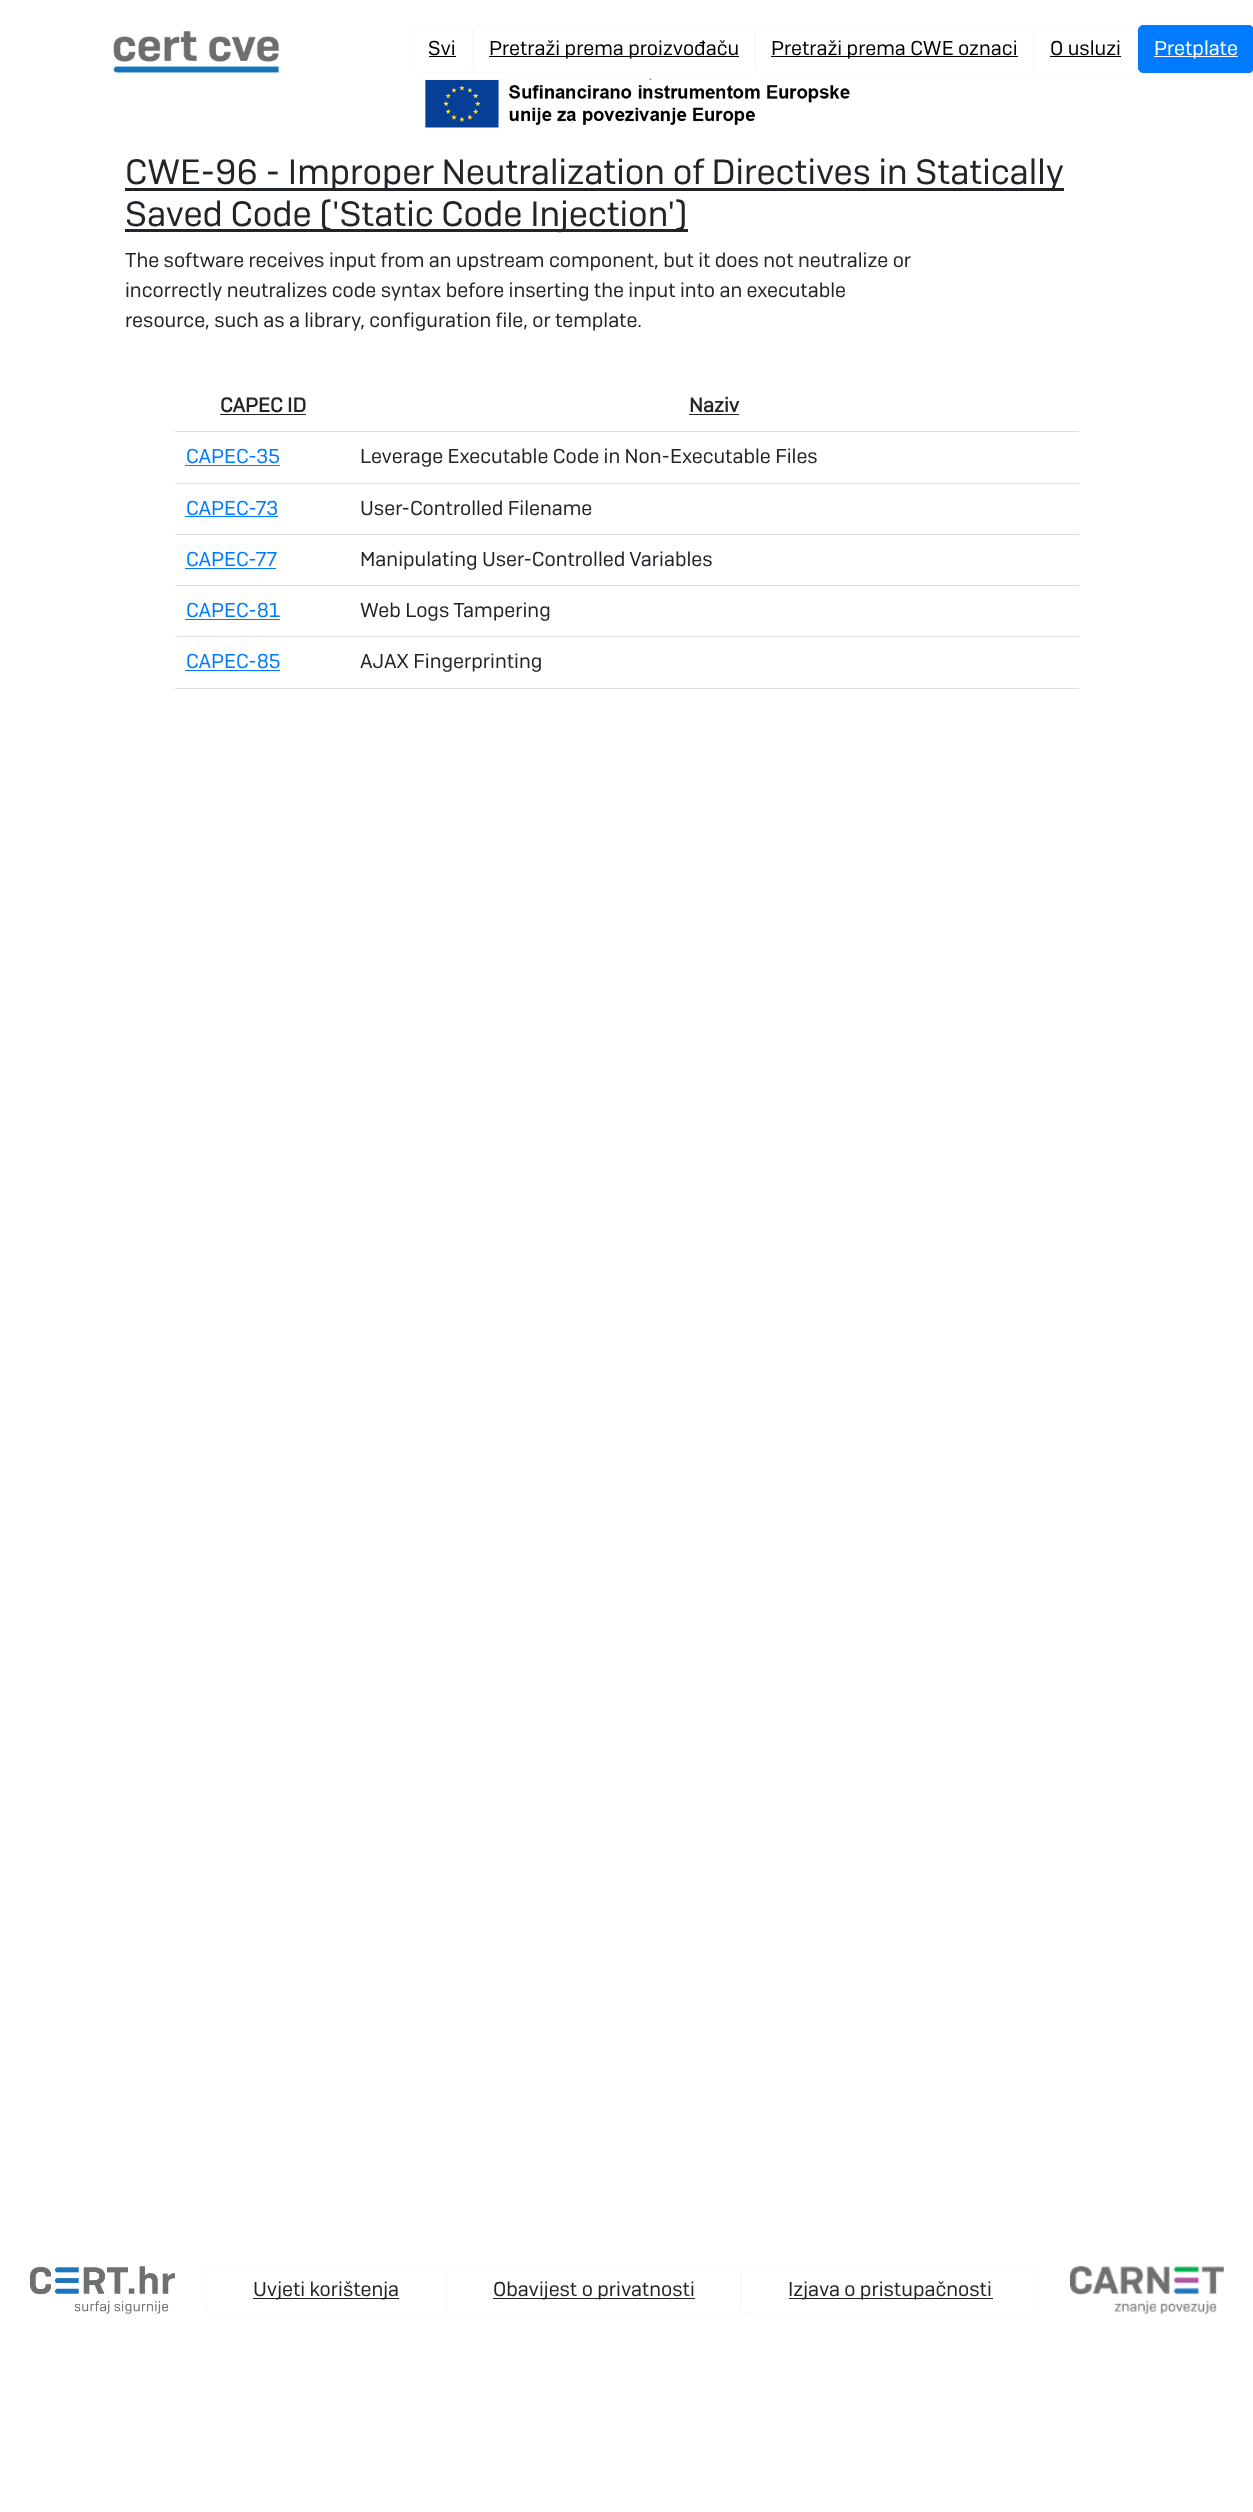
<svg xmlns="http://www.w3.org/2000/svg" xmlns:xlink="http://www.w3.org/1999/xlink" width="1253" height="2512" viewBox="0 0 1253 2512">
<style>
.cls-1{font:20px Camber;fill:#000000}
.cls-2{font:20px Camber;fill:#ffffff}
.cls-3{font:35px Camber;fill:#212529}
.cls-4{font:20px Camber;fill:#212529}
.cls-5{font:bold 20px Camber;fill:#212529}
.cls-6{font:20px Camber;fill:#007bff}
</style>
<rect width="100%" height="100%" fill="#ffffff"/>
<image xlink:href="image0.png" x="113" y="31" width="166" height="42"/>
<rect fill="none" stroke="#f8f9fa" x="413.5" y="25.5" width="59" height="47" rx="4.5"/>
<rect fill="#000000" x="429" y="56" width="27" height="1"/>
<rect fill="none" stroke="#f8f9fa" x="473.5" y="25.5" width="281" height="47" rx="4.5"/>
<rect fill="#000000" x="489" y="56" width="250" height="1"/>
<rect fill="none" stroke="#f8f9fa" x="755.5" y="25.5" width="278" height="47" rx="4.5"/>
<rect fill="#000000" x="771" y="56" width="247" height="1"/>
<rect fill="none" stroke="#f8f9fa" x="1034.5" y="25.5" width="103" height="47" rx="4.5"/>
<rect fill="#000000" x="1050" y="56" width="71" height="1"/>
<rect fill="#007bff" stroke="#007bff" x="1138.5" y="25.5" width="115" height="47" rx="4.5"/>
<rect fill="#ffffff" x="1154" y="56" width="84" height="1"/>
<image xlink:href="image1.png" x="425" y="78" width="425" height="50"/>
<rect fill="#212529" x="125" y="188" width="939" height="3"/>
<rect fill="#212529" x="125" y="229" width="563" height="3"/>
<rect fill="#212529" x="220" y="414" width="86" height="1"/>
<rect fill="#dddddd" x="175" y="431" width="904" height="1"/>
<rect fill="#212529" x="689" y="414" width="50" height="1"/>
<rect fill="#007bff" x="185" y="465" width="95" height="1"/>
<rect fill="#dddddd" x="175" y="483" width="904" height="1"/>
<rect fill="#007bff" x="185" y="516" width="93" height="1"/>
<rect fill="#dddddd" x="175" y="534" width="904" height="1"/>
<rect fill="#007bff" x="185" y="568" width="91" height="1"/>
<rect fill="#dddddd" x="175" y="585" width="904" height="1"/>
<rect fill="#007bff" x="185" y="619" width="95" height="1"/>
<rect fill="#dddddd" x="175" y="636" width="904" height="1"/>
<rect fill="#007bff" x="185" y="670" width="95" height="1"/>
<rect fill="#dddddd" x="175" y="688" width="904" height="1"/>
<image xlink:href="image2.png" x="30" y="2266" width="145" height="48"/>
<rect fill="none" stroke="#f8f9fa" x="206.5" y="2266.5" width="239" height="47" rx="4.5"/>
<rect fill="#212529" x="253" y="2298" width="146" height="1"/>
<rect fill="none" stroke="#f8f9fa" x="446.5" y="2266.5" width="294" height="47" rx="4.5"/>
<rect fill="#212529" x="493" y="2298" width="202" height="1"/>
<rect fill="none" stroke="#f8f9fa" x="741.5" y="2266.5" width="297" height="47" rx="4.5"/>
<rect fill="#212529" x="789" y="2298" width="204" height="1"/>
<image xlink:href="image3.png" x="1070" y="2266" width="154" height="48"/>
<text class="cls-1" x="428" y="55">Svi</text>
<text class="cls-1" x="489" y="55">Pretraži prema proizvođaču</text>
<text class="cls-1" x="771" y="55">Pretraži prema CWE oznaci</text>
<text class="cls-1" x="1050" y="55">O usluzi</text>
<text class="cls-2" x="1154" y="55">Pretplate</text>
<text class="cls-3"><tspan x="125" y="184">CWE-96 - Improper Neutralization of Directives in Statically</tspan><tspan x="125" y="226">Saved Code ('Static Code Injection')</tspan></text>
<text class="cls-4"><tspan x="125" y="267">The software receives input from an upstream component, but it does not neutralize or</tspan><tspan x="125" y="297">incorrectly neutralizes code syntax before inserting the input into an executable</tspan><tspan x="125" y="327">resource, such as a library, configuration file, or template.</tspan></text>
<text class="cls-5" x="220" y="412">CAPEC ID</text>
<text class="cls-5" x="689" y="412">Naziv</text>
<text class="cls-6" x="186" y="463">CAPEC-35</text>
<text class="cls-4" x="360" y="463">Leverage Executable Code in Non-Executable Files</text>
<text class="cls-6" x="186" y="515">CAPEC-73</text>
<text class="cls-4" x="360" y="515">User-Controlled Filename</text>
<text class="cls-6" x="186" y="566">CAPEC-77</text>
<text class="cls-4" x="360" y="566">Manipulating User-Controlled Variables</text>
<text class="cls-6" x="186" y="617">CAPEC-81</text>
<text class="cls-4" x="360" y="617">Web Logs Tampering</text>
<text class="cls-6" x="186" y="668">CAPEC-85</text>
<text class="cls-4" x="360" y="668">AJAX Fingerprinting</text>
<text class="cls-4" x="253" y="2296">Uvjeti korištenja</text>
<text class="cls-4" x="493" y="2296">Obavijest o privatnosti</text>
<text class="cls-4" x="788" y="2296">Izjava o pristupačnosti</text>
</svg>
